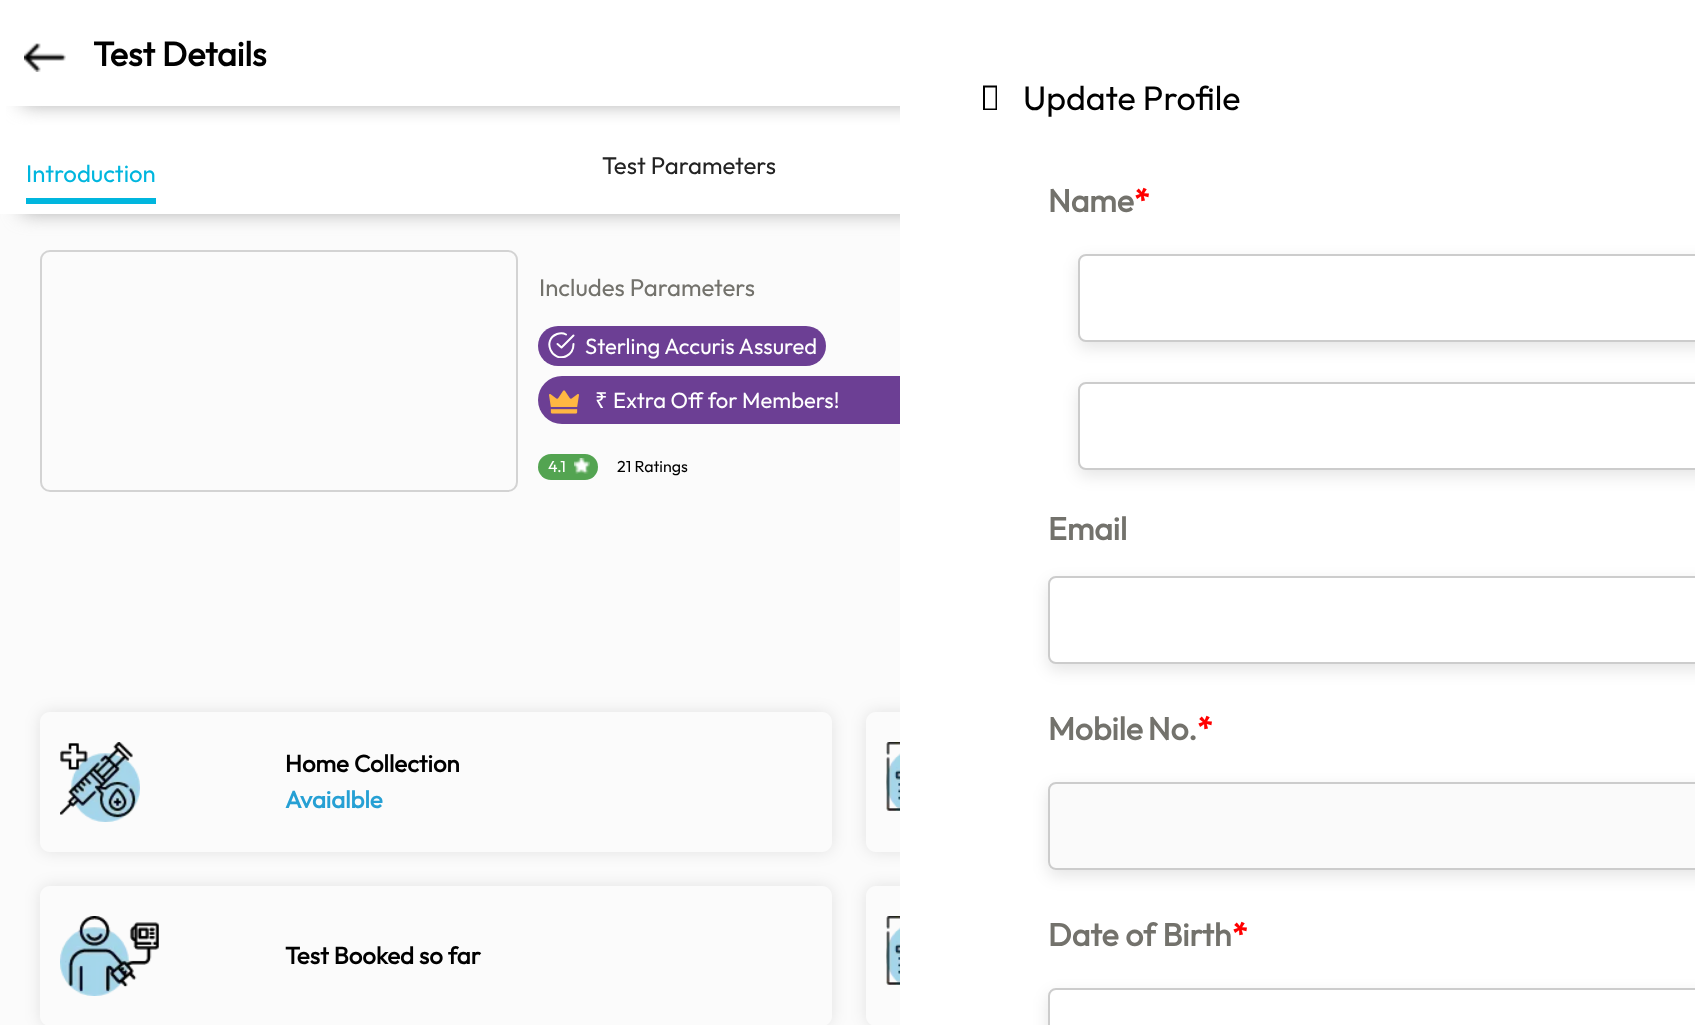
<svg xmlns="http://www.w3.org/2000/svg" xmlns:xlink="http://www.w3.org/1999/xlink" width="1695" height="1025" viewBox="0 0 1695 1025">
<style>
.cls-1{font:bold 34px Outfit;fill:#000000}
.cls-2{font:24px Outfit;fill:#00b6de}
.cls-3{font:24px Outfit;fill:#232323}
.cls-4{font:24px Outfit;fill:#73726c}
.cls-5{font:22px Outfit;fill:#ffffff}
.cls-6{font:22px Noto Sans;fill:#ffffff}
.cls-7{font:16px Outfit;fill:#ffffff}
.cls-8{font:16px Outfit;fill:#000000}
.cls-9{font:bold 24px Outfit;fill:#000000}
.cls-10{font:bold 24px Outfit;fill:#26a0d4}
.cls-11{font:34px Outfit;fill:#000000}
.cls-12{font:bold 32px Outfit;fill:#73726c}
.cls-13{font:bold 32px Outfit;fill:#ff0000}
</style>
<defs>
<clipPath id="clip1"><rect x="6" y="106" width="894" height="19"/></clipPath>
<clipPath id="clip2"><rect x="548" y="332" width="28" height="26"/></clipPath>
<clipPath id="clip3"><path d="M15 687H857V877H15ZM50 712H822C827.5 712 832 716.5 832 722V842C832 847.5 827.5 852 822 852H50C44.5 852 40 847.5 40 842V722C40 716.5 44.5 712 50 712Z" clip-rule="evenodd"/></clipPath>
<clipPath id="clip4"><path d="M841 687H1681V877H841ZM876 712H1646C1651.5 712 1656 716.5 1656 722V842C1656 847.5 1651.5 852 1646 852H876C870.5 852 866 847.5 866 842V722C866 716.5 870.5 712 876 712Z" clip-rule="evenodd"/></clipPath>
<clipPath id="clip5"><path d="M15 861H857V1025H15ZM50 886H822C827.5 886 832 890.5 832 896V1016C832 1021.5 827.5 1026 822 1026H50C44.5 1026 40 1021.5 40 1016V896C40 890.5 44.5 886 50 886Z" clip-rule="evenodd"/></clipPath>
<clipPath id="clip6"><path d="M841 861H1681V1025H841ZM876 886H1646C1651.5 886 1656 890.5 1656 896V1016C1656 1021.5 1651.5 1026 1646 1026H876C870.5 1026 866 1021.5 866 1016V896C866 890.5 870.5 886 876 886Z" clip-rule="evenodd"/></clipPath>
<clipPath id="clip7"><path d="M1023 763H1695V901H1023ZM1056 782H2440C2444.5 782 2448 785.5 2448 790V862C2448 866.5 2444.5 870 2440 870H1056C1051.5 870 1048 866.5 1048 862V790C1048 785.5 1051.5 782 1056 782Z" clip-rule="evenodd"/></clipPath>
<clipPath id="clip8"><path d="M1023 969H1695V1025H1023ZM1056 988H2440C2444.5 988 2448 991.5 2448 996V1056C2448 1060.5 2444.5 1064 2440 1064H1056C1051.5 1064 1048 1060.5 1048 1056V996C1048 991.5 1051.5 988 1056 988Z" clip-rule="evenodd"/></clipPath>
</defs>
<rect width="100%" height="100%" fill="#fbfbfb"/>
<rect fill="#a5a5a5" filter="blur(10px)" x="22" y="42" width="1652" height="170"/>
<rect fill="#ffffff" x="0" y="0" width="900" height="214"/>
<g clip-path="url(#clip1)">
<rect fill="#a5a5a5" filter="blur(10px)" x="22" y="42" width="1652" height="62"/>
</g>
<image xlink:href="image0.png" x="24" y="43" width="42" height="29"/>
<rect fill="#00b6de" x="26" y="198" width="130" height="6"/>
<rect fill="none" stroke="#d3d3d3" stroke-width="2" x="41" y="251" width="476" height="240" rx="9"/>
<rect fill="#6c3f94" x="538" y="326" width="288" height="40" rx="20"/>
<g clip-path="url(#clip2)">
<path fill="none" stroke="#ffffff" stroke-width="2" stroke-linecap="round" stroke-linejoin="round" d="M573.5 344C573.5 349 571.5 353.5 566.5 356C552 363 541.5 340 557 334C560 333 563.5 333 566 334.5"/>
</g>
<path fill="none" stroke="#ffffff" stroke-width="2" stroke-linecap="round" stroke-linejoin="round" d="M573.5 335.5L561.5 347.5L557.5 344"/>
<rect fill="#6c3f94" x="538" y="376" width="1118" height="48" rx="24"/>
<image xlink:href="image1.png" x="549" y="390" width="30" height="24"/>
<rect fill="#53a451" x="538" y="454" width="60" height="26" rx="13"/>
<image xlink:href="image2.png" x="574" y="458" width="16" height="16"/>
<g clip-path="url(#clip3)">
<rect fill="#000000" fill-opacity="0.1" filter="blur(8px)" x="40" y="712" width="792" height="140" rx="10"/>
</g>
<image xlink:href="image3.png" x="60" y="742" width="80" height="80"/>
<g clip-path="url(#clip4)">
<rect fill="#000000" fill-opacity="0.1" filter="blur(8px)" x="866" y="712" width="790" height="140" rx="10"/>
</g>
<image xlink:href="image4.png" x="886" y="742" width="14" height="69"/>
<g clip-path="url(#clip5)">
<rect fill="#000000" fill-opacity="0.1" filter="blur(8px)" x="40" y="886" width="792" height="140" rx="10"/>
</g>
<image xlink:href="image5.png" x="60" y="916" width="99" height="80"/>
<g clip-path="url(#clip6)">
<rect fill="#000000" fill-opacity="0.1" filter="blur(8px)" x="866" y="886" width="790" height="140" rx="10"/>
</g>
<image xlink:href="image6.png" x="886" y="916" width="14" height="69"/>
<rect fill="#ffffff" x="900" y="0" width="795" height="1025"/>
<path fill="#000000" d="M983 110V85.5H997V110ZM985 108.5H995.5V87.5H985Z"/>
<rect fill="#000000" fill-opacity="0.1" filter="blur(8px)" x="1078" y="260" width="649" height="88" rx="8"/>
<rect fill="#ffffff" stroke="#cccccc" stroke-width="2" x="1079" y="255" width="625" height="86" rx="7"/>
<rect fill="#000000" fill-opacity="0.1" filter="blur(8px)" x="1078" y="388" width="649" height="88" rx="8"/>
<rect fill="#ffffff" stroke="#cccccc" stroke-width="2" x="1079" y="383" width="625" height="86" rx="7"/>
<rect fill="#000000" fill-opacity="0.1" filter="blur(8px)" x="1048" y="582" width="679" height="88" rx="8"/>
<rect fill="#ffffff" stroke="#cccccc" stroke-width="2" x="1049" y="577" width="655" height="86" rx="7"/>
<g clip-path="url(#clip7)">
<rect fill="#000000" fill-opacity="0.1" filter="blur(8px)" x="1048" y="788" width="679" height="88" rx="8"/>
</g>
<rect fill="#efefef" fill-opacity="0.3" stroke="#cccccc" stroke-width="2" x="1049" y="783" width="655" height="86" rx="7"/>
<g clip-path="url(#clip8)">
<rect fill="#000000" fill-opacity="0.1" filter="blur(8px)" x="1048" y="994" width="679" height="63" rx="8"/>
</g>
<rect fill="none" stroke="#cccccc" stroke-width="2" x="1049" y="989" width="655" height="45" rx="7"/>
<text class="cls-1" x="93" y="66">Test Details</text>
<text class="cls-2" x="26" y="182">Introduction</text>
<text class="cls-3" x="602" y="174">Test Parameters</text>
<text class="cls-4" x="539" y="296">Includes Parameters</text>
<text class="cls-5" x="585" y="354">Sterling Accuris Assured</text>
<text class="cls-6" x="595" y="408">₹</text>
<text class="cls-5" x="613" y="408">Extra Off for Members!</text>
<text class="cls-7" x="548" y="472">4.1</text>
<text class="cls-8" x="617" y="472">21 Ratings</text>
<text class="cls-9" x="285" y="772">Home Collection</text>
<text class="cls-10" x="285" y="808">Avaialble</text>
<text class="cls-9" x="285" y="964">Test Booked so far</text>
<text class="cls-11" x="1023" y="110">Update Profile</text>
<text class="cls-12" x="1048" y="212">Name</text>
<text class="cls-13" x="1134" y="212">*</text>
<text class="cls-12" x="1048" y="540">Email</text>
<text class="cls-12" x="1048" y="740" word-spacing="-2">Mobile No.</text>
<text class="cls-13" x="1197" y="740">*</text>
<text class="cls-12" x="1048" y="946">Date of Birth</text>
<text class="cls-13" x="1232" y="946">*</text>
</svg>
